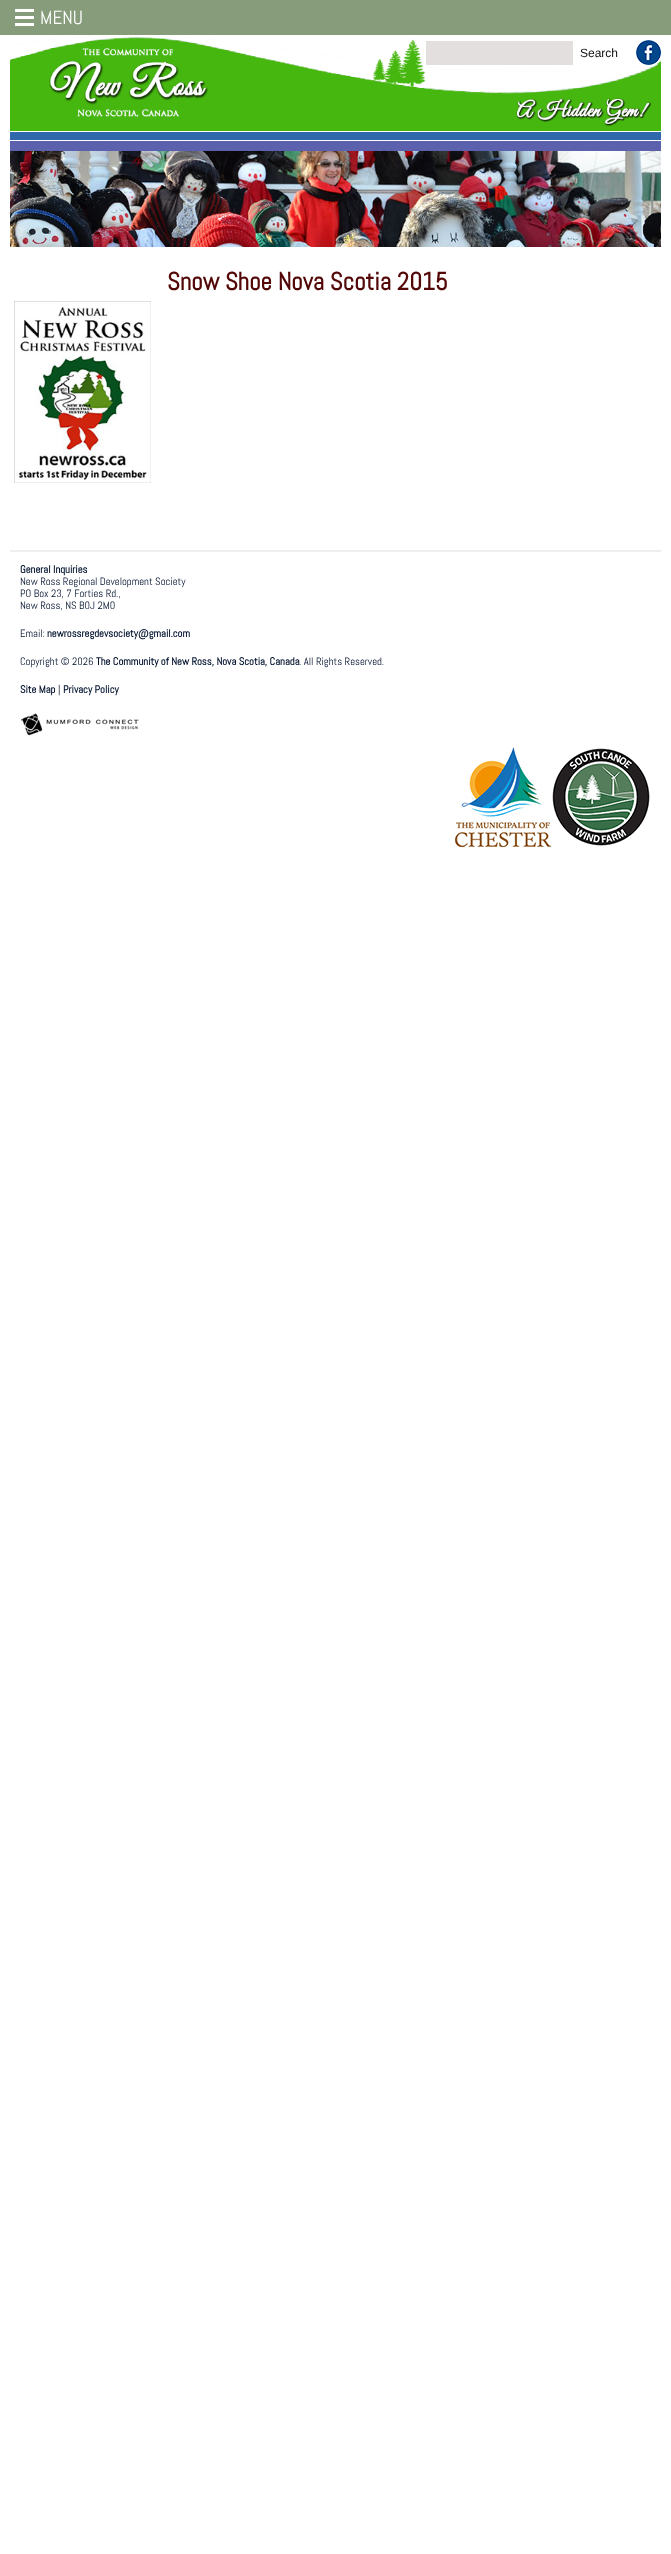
<svg xmlns="http://www.w3.org/2000/svg" xmlns:xlink="http://www.w3.org/1999/xlink" width="671" height="2554" viewBox="0 0 671 2554">
<style>
.cls-1{font:19px Abel;fill:#ffffff}
.cls-2{font:12px Liberation Sans;fill:#111111}
.cls-3{font:bold 25px Abel;fill:#530707}
.cls-4{font:bold 10.7px Abel;fill:#00112d}
.cls-5{font:10.7px Abel;fill:#00112d}
</style>
<rect width="100%" height="100%" fill="#ffffff"/>
<rect fill="#879c7b" x="0" y="0" width="671" height="35"/>
<rect fill="#ffffff" x="15" y="9" width="19" height="3"/>
<rect fill="#ffffff" x="15" y="16" width="19" height="3"/>
<rect fill="#ffffff" x="15" y="23" width="19" height="3"/>
<image xlink:href="image0.png" x="10" y="36" width="651" height="95"/>
<rect fill="#e3dfdf" x="426" y="41" width="147" height="24"/>
<image xlink:href="image1.png" x="636" y="40" width="25" height="25"/>
<rect fill="#2f69ab" x="10" y="132" width="651" height="8"/>
<rect fill="#5b61ac" x="10" y="141" width="651" height="10"/>
<image xlink:href="image2.png" x="10" y="151" width="651" height="96"/>
<image xlink:href="image3.png" x="14" y="301" width="137" height="182"/>
<rect fill="#eeeeee" x="10" y="550" width="651" height="2"/>
<image xlink:href="image4.png" x="21" y="713" width="118" height="23"/>
<image xlink:href="image5.png" x="455" y="747" width="96" height="100"/>
<image xlink:href="image6.png" x="552" y="748" width="98" height="98"/>
<text class="cls-1" x="40" y="24">MENU</text>
<text class="cls-2" x="580" y="57">Search</text>
<text class="cls-3" x="167" y="290">Snow Shoe Nova Scotia 2015</text>
<text class="cls-4" x="20" y="573">General Inquiries</text>
<text class="cls-5"><tspan x="20" y="585">New Ross Regional Development Society</tspan><tspan x="20" y="597">PO Box 23, 7 Forties Rd.,</tspan><tspan x="20" y="609">New Ross, NS B0J 2M0</tspan></text>
<text class="cls-5" x="20" y="637">Email:</text>
<text class="cls-4" x="47" y="637">newrossregdevsociety@gmail.com</text>
<text class="cls-5" x="20" y="665">Copyright © 2026</text>
<text class="cls-4" x="96" y="665">The Community of New Ross, Nova Scotia, Canada</text>
<text class="cls-5" x="299" y="665">. All Rights Reserved.</text>
<text class="cls-4" x="20" y="693">Site Map</text>
<text class="cls-5" x="58" y="693">|</text>
<text class="cls-4" x="63" y="693">Privacy Policy</text>
</svg>
